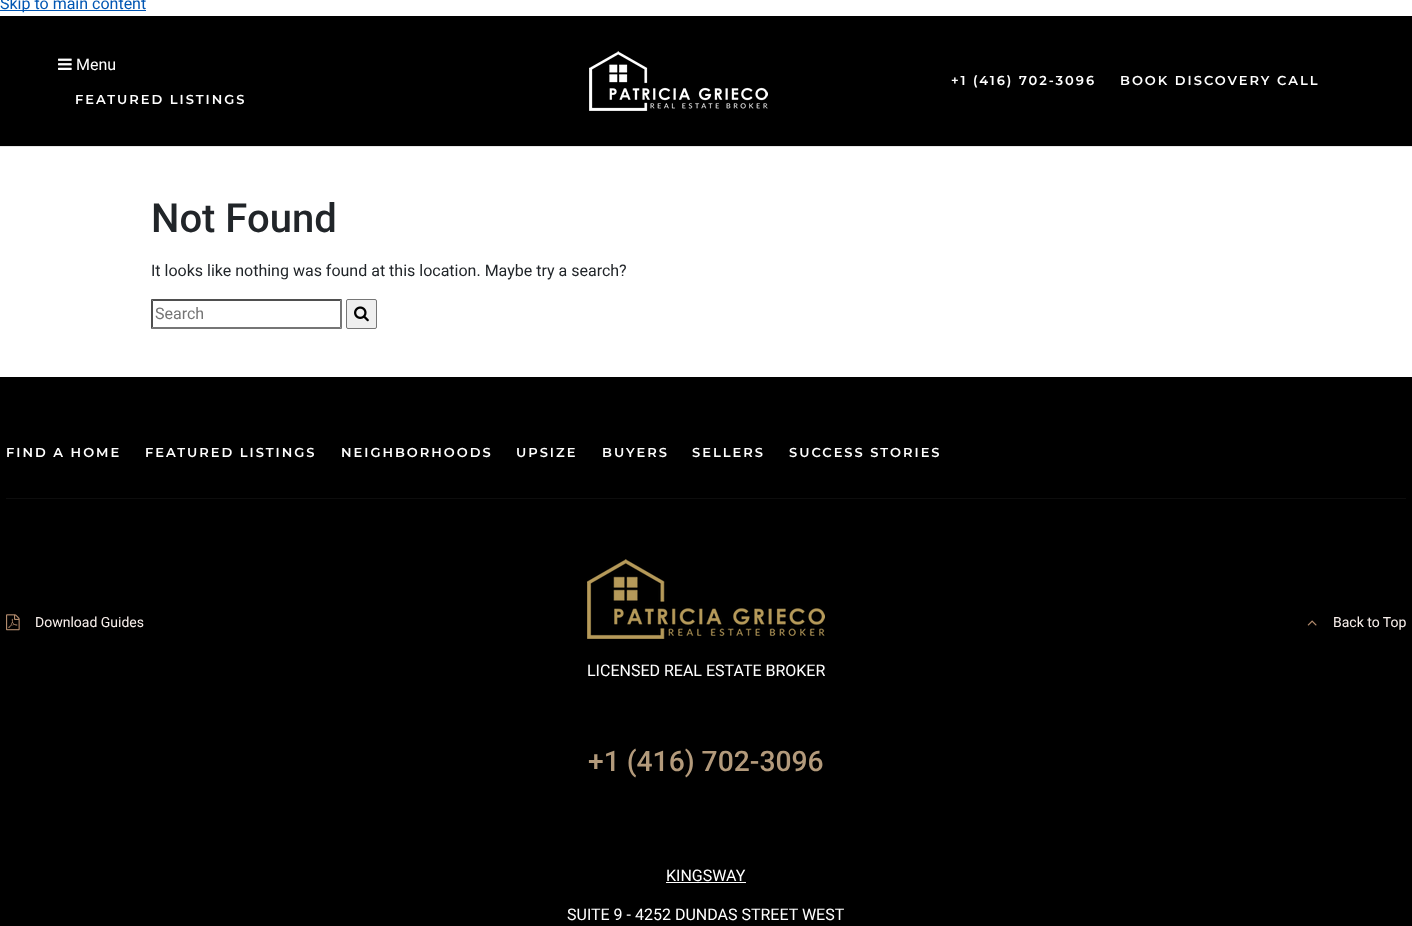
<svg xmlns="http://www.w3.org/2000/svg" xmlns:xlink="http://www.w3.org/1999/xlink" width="1412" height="926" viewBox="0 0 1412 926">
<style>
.cls-1{font:16px Roboto;fill:#0056b3}
.cls-2{font:16px Roboto;fill:#ffffff}
.cls-3{font:600 13px Montserrat;letter-spacing:2px;fill:#ffffff}
.cls-4{font:500 40px Roboto;fill:#212529}
.cls-5{font:16px Roboto;fill:#212529}
.cls-6{font:16px Roboto;fill:#757575}
.cls-7{font:14px Roboto;fill:#f9f0ec}
.cls-8{font:500 28.25px Roboto;fill:#b39a7b}
</style>
<rect width="100%" height="100%" fill="#ffffff"/>
<rect fill="#0056b3" x="0" y="10" width="146" height="1"/>
<rect fill="#e6e6e6" x="0" y="146" width="1412" height="1"/>
<rect fill="#000000" x="0" y="16" width="1412" height="130"/>
<image xlink:href="image0.png" x="58" y="58" width="14" height="12"/>
<image xlink:href="image1.png" x="589" y="51" width="179" height="60"/>
<path fill="#4f4f4f" d="M151 299H342L340 301H153Z"/>
<path fill="#767676" d="M342 299V329L340 327V301Z"/>
<path fill="#767676" d="M342 329H151L153 327H340Z"/>
<path fill="#4f4f4f" d="M151 329V299L153 301V327Z"/>
<rect fill="#efefef" stroke="#767676" x="346.5" y="299.5" width="30" height="29" rx="1.5"/>
<image xlink:href="image2.png" x="354" y="306" width="15" height="16"/>
<rect fill="#000000" x="0" y="377" width="1412" height="549"/>
<rect fill="#0d0d0d" x="6" y="498" width="1400" height="1"/>
<image xlink:href="image3.png" x="6" y="614" width="14" height="17"/>
<image xlink:href="image4.png" x="1307" y="620" width="10" height="6"/>
<image xlink:href="image5.png" x="587" y="559" width="238" height="80"/>
<rect fill="#ffffff" x="666" y="882" width="80" height="1"/>
<text class="cls-1" x="0" y="9">Skip to main content</text>
<text class="cls-2" x="76" y="70">Menu</text>
<text class="cls-3" x="75" y="104">FEATURED LISTINGS</text>
<text class="cls-3" x="951" y="85">+1 (416) 702-3096</text>
<text class="cls-3" x="1120" y="85">BOOK DISCOVERY CALL</text>
<text class="cls-4" x="151" y="232">Not Found</text>
<text class="cls-5" x="151" y="276">It looks like nothing was found at this location. Maybe try a search?</text>
<text class="cls-6" x="155" y="319">Search</text>
<text class="cls-3" x="6" y="457">FIND A HOME</text>
<text class="cls-3" x="145" y="457">FEATURED LISTINGS</text>
<text class="cls-3" x="341" y="457">NEIGHBORHOODS</text>
<text class="cls-3" x="516" y="457">UPSIZE</text>
<text class="cls-3" x="602" y="457">BUYERS</text>
<text class="cls-3" x="692" y="457">SELLERS</text>
<text class="cls-3" x="789" y="457">SUCCESS STORIES</text>
<text class="cls-7" x="35" y="627">Download Guides</text>
<text class="cls-7" x="1333" y="627">Back to Top</text>
<text class="cls-2" x="587" y="676">LICENSED REAL ESTATE BROKER</text>
<text class="cls-8" x="588" y="771">+1 (416) 702-3096</text>
<text class="cls-2" x="666" y="881">KINGSWAY</text>
<text class="cls-2" x="567" y="920">SUITE 9 - 4252 DUNDAS STREET WEST</text>
</svg>
